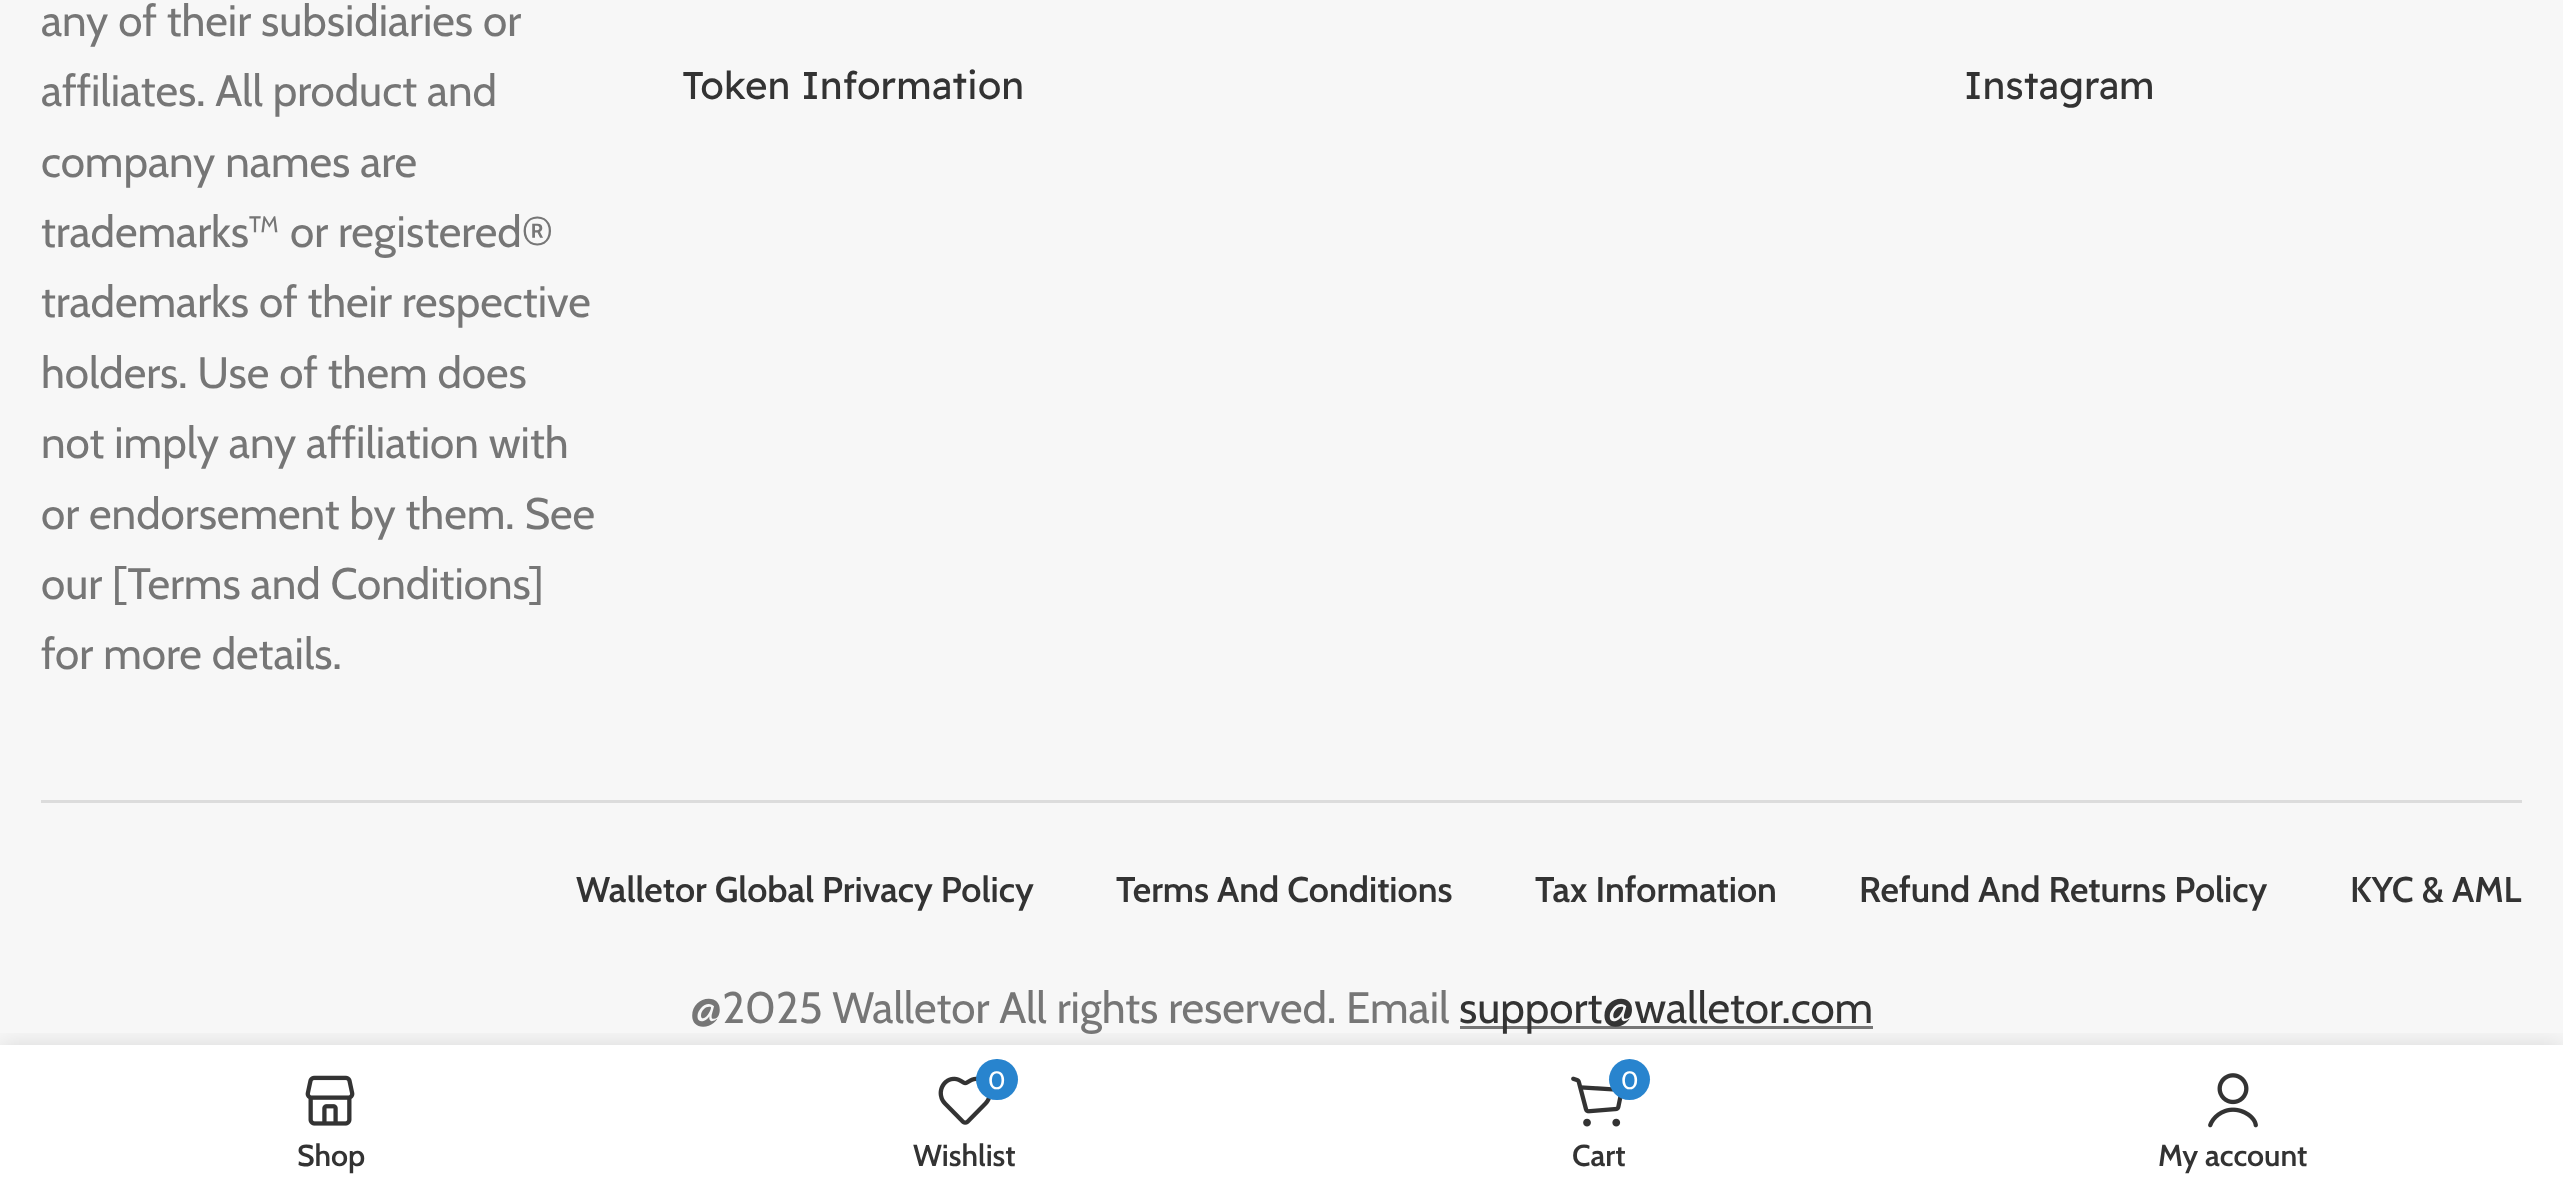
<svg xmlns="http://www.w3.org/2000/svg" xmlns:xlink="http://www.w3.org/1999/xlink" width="2563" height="1194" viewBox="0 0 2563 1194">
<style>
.cls-1{font:44px Cabin;fill:#767676}
.cls-2{font:38.5px Readex Pro;fill:#333333}
.cls-3{font:600 35.75px Cabin;fill:#333333}
.cls-4{font:44px Cabin;fill:#333333}
.cls-5{font:600 30.25px Cabin;fill:#333333}
.cls-6{font:25px Cabin;fill:#ffffff}
</style>
<defs>
<clipPath id="clip1"><rect x="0" y="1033" width="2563" height="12"/></clipPath>
</defs>
<rect width="100%" height="100%" fill="#ffffff"/>
<rect fill="#f7f7f7" x="0" y="0" width="2563" height="1045"/>
<rect fill="#dcdcdc" x="41" y="800" width="2481" height="3"/>
<rect fill="#767676" x="1460" y="1026" width="413" height="3"/>
<g clip-path="url(#clip1)">
<rect fill="#000000" fill-opacity="0.12" filter="blur(12.5px)" x="0" y="1045" width="2563" height="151"/>
</g>
<image xlink:href="image0.png" x="305" y="1075" width="50" height="51"/>
<image xlink:href="image1.png" x="938" y="1076" width="53" height="49"/>
<rect fill="#2884ce" x="976" y="1059" width="42" height="41" rx="20.5"/>
<image xlink:href="image2.png" x="1571" y="1076" width="52" height="51"/>
<circle fill="#2884ce" cx="1629.5" cy="1079.5" r="20.5"/>
<image xlink:href="image3.png" x="2208" y="1073" width="50" height="55"/>
<text class="cls-1"><tspan x="41" y="36">any of their subsidiaries or</tspan><tspan x="41" y="106">affiliates. All product and</tspan><tspan x="41" y="177">company names are</tspan><tspan x="41" y="247">trademarks™ or registered®</tspan><tspan x="41" y="317">trademarks of their respective</tspan><tspan x="41" y="388">holders. Use of them does</tspan><tspan x="41" y="458">not imply any affiliation with</tspan><tspan x="41" y="529">or endorsement by them. See</tspan><tspan x="41" y="599">our [Terms and Conditions]</tspan><tspan x="41" y="669">for more details.</tspan></text>
<text class="cls-2" x="682" y="99">Token Information</text>
<text class="cls-2" x="1964" y="99">Instagram</text>
<text class="cls-3" x="576" y="902">Walletor Global Privacy Policy</text>
<text class="cls-3" x="1116" y="902">Terms And Conditions</text>
<text class="cls-3" x="1535" y="902">Tax Information</text>
<text class="cls-3" x="1859" y="902">Refund And Returns Policy</text>
<text class="cls-3" x="2350" y="902">KYC &amp; AML</text>
<text class="cls-1" x="690" y="1023">@2025 Walletor All rights reserved. Email</text>
<text class="cls-4" x="1459" y="1023">support@walletor.com</text>
<text class="cls-5" x="297" y="1166">Shop</text>
<text class="cls-6" x="988" y="1089">0</text>
<text class="cls-5" x="913" y="1166">Wishlist</text>
<text class="cls-6" x="1621" y="1089">0</text>
<text class="cls-5" x="1572" y="1166">Cart</text>
<text class="cls-5" x="2158" y="1166">My account</text>
</svg>
